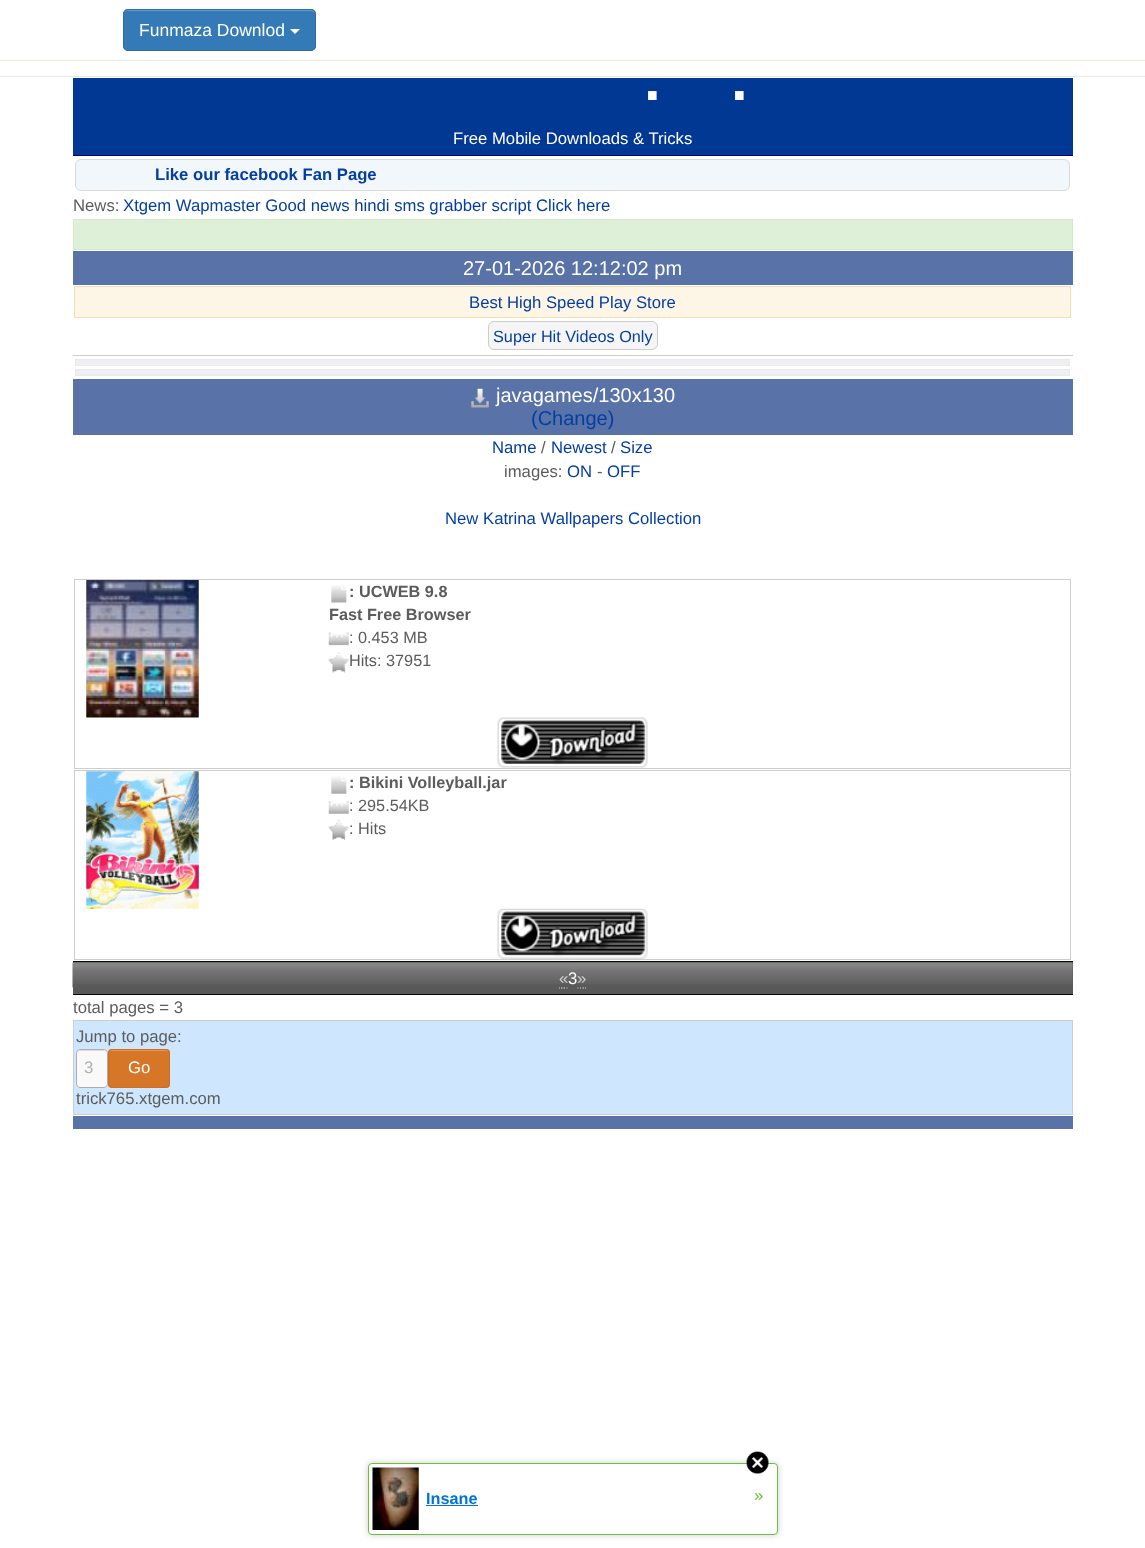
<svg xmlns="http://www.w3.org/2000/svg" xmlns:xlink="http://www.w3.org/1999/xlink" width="1145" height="1548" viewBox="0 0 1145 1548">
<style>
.cls-1{font:17.5px Liberation Sans;fill:#ffffff}
.cls-2{font:bold 60px Liberation Sans;fill:#ffffff}
.cls-3{font:16.7px Liberation Sans;fill:#ffffff}
.cls-4{font:bold 16.7px Liberation Sans;fill:#043ea2}
.cls-5{font:16.7px Liberation Sans;fill:#5c5c5c}
.cls-6{font:16.7px Liberation Sans;fill:#043ea2}
.cls-7{font:20px Liberation Sans;fill:#ffffff}
.cls-8{font:16.25px Liberation Sans;fill:#043ea2}
.cls-9{font:20px Liberation Sans;fill:#043ea2}
.cls-10{font:bold 16.25px Liberation Sans;fill:#5c5c5c}
.cls-11{font:16.25px Liberation Sans;fill:#5c5c5c}
.cls-12{font:16.7px Liberation Sans;fill:#cecece}
.cls-13{font:16.7px Liberation Sans;fill:#aeaeae}
.cls-14{font:bold 16.25px Liberation Sans;fill:#0274d4}
.cls-15{font:16.7px Liberation Sans;fill:#6bc135}
</style>
<rect width="100%" height="100%" fill="#ffffff"/>
<rect fill="#e8e8e8" x="0" y="76" width="1145" height="1"/>
<rect fill="#ede9dc" x="0" y="60" width="1145" height="1"/>
<rect fill="#337ab7" x="123" y="9" width="193" height="42" rx="5"/>
<path fill="#669bc9" d="M128 11H311C313 11 315 13 315 15C315 12 314 10 311 10H127C125 11 124 13 124 15C124 13 125 11 128 11Z"/>
<rect fill="none" stroke="#2e6da4" x="123.5" y="9.5" width="192" height="41" rx="4.5"/>
<path fill="#ffffff" d="M290 29H300L295 34Z"/>
<rect fill="#003894" x="73" y="78" width="1000" height="77"/>
<rect fill="#000063" x="73" y="155" width="1000" height="1"/>
<rect fill="#f2f7fc" stroke="#d9d9d9" x="75.5" y="159.5" width="994" height="31" rx="5.5"/>
<rect fill="#dff0d8" stroke="#d6e9c6" x="73.5" y="219.5" width="999" height="30"/>
<rect fill="#5972a7" x="73" y="251" width="1000" height="34"/>
<rect fill="#fdf5e6" stroke="#f5deb3" x="74.5" y="286.5" width="996" height="31"/>
<rect fill="#cccccc" x="73" y="355" width="1000" height="1"/>
<rect fill="#f5f5f5" stroke="#cccccc" x="488.5" y="321.5" width="169" height="28" rx="5.5"/>
<rect fill="#edeff4" stroke="#ece9e9" x="75.5" y="359.5" width="994" height="6"/>
<rect fill="#edeff4" stroke="#ece9e9" x="75.5" y="369.5" width="994" height="6"/>
<rect fill="#5972a7" x="73" y="379" width="1000" height="56"/>
<image xlink:href="image0.png" x="471" y="388" width="18" height="20"/>
<rect fill="none" stroke="#cecece" x="74.5" y="579.5" width="996" height="189"/>
<image xlink:href="image1.png" x="86" y="580" width="113" height="138"/>
<image xlink:href="image2.png" x="331" y="585" width="16" height="18"/>
<image xlink:href="image3.png" x="328" y="632" width="21" height="14"/>
<image xlink:href="image4.png" x="328" y="652" width="21" height="21"/>
<image xlink:href="image5.png" x="497" y="717" width="151" height="51"/>
<rect fill="none" stroke="#cecece" x="74.5" y="770.5" width="996" height="189"/>
<image xlink:href="image6.png" x="86" y="771" width="113" height="138"/>
<image xlink:href="image7.png" x="331" y="776" width="16" height="18"/>
<image xlink:href="image8.png" x="328" y="801" width="21" height="13"/>
<image xlink:href="image9.png" x="328" y="820" width="21" height="20"/>
<image xlink:href="image10.png" x="497" y="908" width="151" height="51"/>
<rect fill="#5a595a" x="73" y="962" width="1000" height="32"/>
<image xlink:href="image11.png" x="72" y="962" width="1001" height="26"/>
<rect fill="#080808" x="73" y="961" width="1000" height="1"/>
<rect fill="#080808" x="73" y="994" width="1000" height="1"/>
<path fill="none" stroke="#cecece" stroke-width="1.2" d="M559 988H560M561 988H562.5M563.5 988H565M566.5 988H567.5"/>
<path fill="none" stroke="#cecece" stroke-width="1.2" d="M577.5 988H578.5M580 988H581M582.5 988H584M585 988H586"/>
<rect fill="#cee7ff" stroke="#cecece" x="73.5" y="1020.5" width="999" height="94"/>
<rect fill="#f9f9f9" x="76" y="1049" width="32" height="39" rx="4"/>
<path fill="#e0e0e0" d="M80 1051H104C105 1051 106 1052 106 1054C106 1049.5 104 1050 99.5 1050H84.5C80 1050 78 1049.5 78 1054C78 1052 79 1051 80 1051Z"/>
<rect fill="none" stroke="#aeaeae" x="76.5" y="1049.5" width="31" height="38" rx="3.5"/>
<rect fill="#d67728" x="108" y="1049" width="62" height="39" rx="4"/>
<path fill="#e0995e" d="M111 1051H166C168 1051 169 1052 169 1054C169 1048 163 1050 157 1050H121C115 1050 109 1048 109 1054C109 1052 110 1051 111 1051Z"/>
<rect fill="none" stroke="#d26c24" x="108.5" y="1049.5" width="61" height="38" rx="3.5"/>
<rect fill="#5972a7" x="73" y="1116" width="1000" height="13"/>
<rect fill="#000000" fill-opacity="0.2" filter="blur(3px)" x="368" y="1463" width="410" height="72" rx="4"/>
<rect fill="#ffffff" stroke="#6bc135" x="368.5" y="1463.5" width="409" height="71" rx="3.5"/>
<image xlink:href="image12.png" x="746" y="1451" width="23" height="23"/>
<image xlink:href="image13.png" x="372" y="1467" width="47" height="63"/>
<rect fill="#0274d4" x="426" y="1505" width="52" height="1"/>
<text class="cls-1" x="139" y="36">Funmaza Downlod</text>
<text class="cls-2" x="644" y="100">.</text>
<text class="cls-2" x="731" y="100">.</text>
<text class="cls-3" x="453" y="144">Free Mobile Downloads &amp; Tricks</text>
<text class="cls-4" x="155" y="180">Like our facebook Fan Page</text>
<text class="cls-5" x="73" y="211">News:</text>
<text class="cls-6" x="123" y="211">Xtgem Wapmaster Good news hindi sms grabber script Click here</text>
<text class="cls-7" x="463" y="275">27-01-2026 12:12:02 pm</text>
<text class="cls-6" x="469" y="308">Best High Speed Play Store</text>
<text class="cls-8" x="493" y="342">Super Hit Videos Only</text>
<text class="cls-7" x="496" y="402">javagames/130x130</text>
<text class="cls-9" x="531" y="425">(Change)</text>
<text class="cls-6" x="492" y="453">Name</text>
<text class="cls-5" x="541" y="453">/</text>
<text class="cls-6" x="551" y="453">Newest</text>
<text class="cls-5" x="611" y="453">/</text>
<text class="cls-6" x="620" y="453">Size</text>
<text class="cls-5" x="504" y="477">images:</text>
<text class="cls-6" x="567" y="477">ON</text>
<text class="cls-5" x="597" y="477">-</text>
<text class="cls-6" x="607" y="477">OFF</text>
<text class="cls-6" x="445" y="524">New Katrina Wallpapers Collection</text>
<text class="cls-10" x="349" y="597">: UCWEB 9.8</text>
<text class="cls-10" x="329" y="620">Fast Free Browser</text>
<text class="cls-11"><tspan x="349" y="643">: 0.453 MB</tspan><tspan x="349" y="666">Hits: 37951</tspan></text>
<text class="cls-10" x="349" y="788">: Bikini Volleyball.jar</text>
<text class="cls-11"><tspan x="349" y="811">: 295.54KB</tspan><tspan x="349" y="834">: Hits</tspan></text>
<text class="cls-12" x="559" y="984">«</text>
<text class="cls-3" x="568" y="984">3</text>
<text class="cls-12" x="577" y="984">»</text>
<text class="cls-5" x="73" y="1013">total pages = 3</text>
<text class="cls-5" x="76" y="1042">Jump to page:</text>
<text class="cls-13" x="84" y="1073">3</text>
<text class="cls-3" x="128" y="1073">Go</text>
<text class="cls-5" x="76" y="1104">trick765.xtgem.com</text>
<text class="cls-14" x="426" y="1504">Insane</text>
<text class="cls-15" x="754" y="1501">»</text>
</svg>
